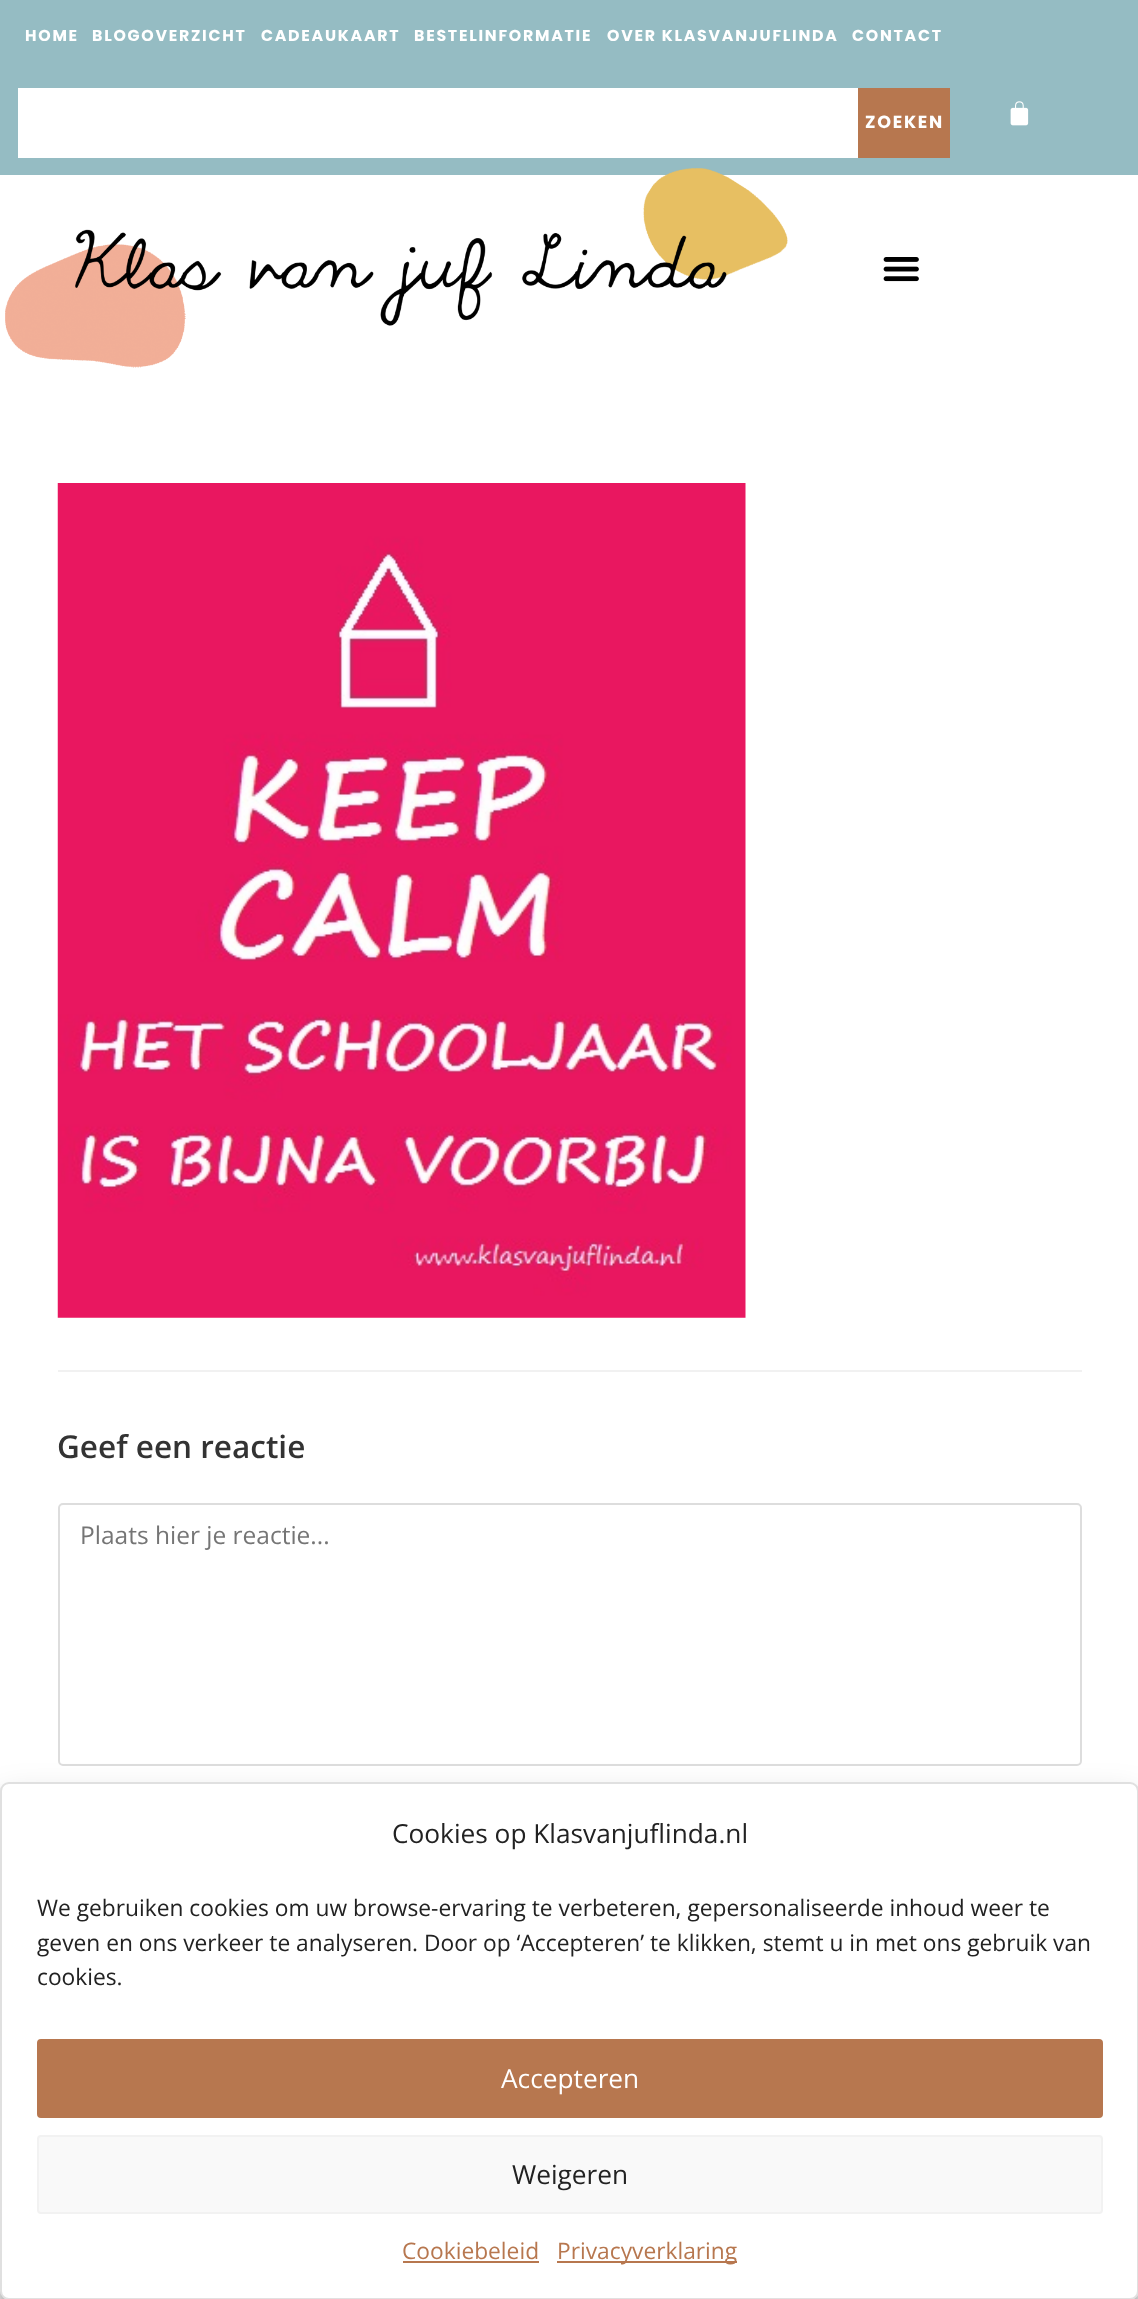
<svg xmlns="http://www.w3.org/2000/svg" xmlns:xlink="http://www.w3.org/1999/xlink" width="1138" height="2299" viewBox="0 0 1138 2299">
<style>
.cls-1{font:bold 15.75px Poppins;letter-spacing:1.75px;fill:#ffffff}
.cls-2{font:bold 17.5px Poppins;letter-spacing:1.75px;fill:#ffffff}
.cls-3{font:600 31.5px Open Sans;fill:#333333}
.cls-4{font:24.5px Open Sans;fill:#757575}
.cls-5{font:26.25px Open Sans;fill:#222222}
.cls-6{font:22.75px Open Sans;fill:#222222}
.cls-7{font:26.25px Open Sans;fill:#ffffff}
.cls-8{font:22.75px Open Sans;fill:#b7774f}
</style>
<rect width="100%" height="100%" fill="#ffffff"/>
<rect fill="#95bcc3" x="0" y="0" width="1138" height="175"/>
<rect fill="#ffffff" x="18" y="88" width="840" height="70"/>
<rect fill="#b7774f" x="858" y="88" width="92" height="70"/>
<image xlink:href="image0.png" x="1010" y="101" width="19" height="25"/>
<image xlink:href="image1.png" x="5" y="168" width="783" height="200"/>
<image xlink:href="image2.png" x="883" y="257" width="36" height="25"/>
<image xlink:href="image3.png" x="57" y="483" width="689" height="835"/>
<rect fill="#f1f1f1" x="58" y="1370" width="1024" height="2"/>
<rect fill="none" stroke="#dddddd" stroke-width="2" x="59" y="1504" width="1022" height="261" rx="4"/>
<rect fill="#000000" fill-opacity="0.23" filter="blur(5px)" x="0" y="1792" width="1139" height="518" rx="9"/>
<rect fill="#000000" fill-opacity="0.19" filter="blur(17.5px)" x="0" y="1799" width="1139" height="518" rx="9"/>
<rect fill="#ffffff" stroke="#e0e0e0" stroke-width="2" x="1" y="1783" width="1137" height="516" rx="8"/>
<rect fill="#b7774f" stroke="#b7774f" stroke-width="2" x="38" y="2040" width="1064" height="77" rx="3"/>
<rect fill="#f9f9f9" stroke="#f2f2f2" stroke-width="2" x="38" y="2136" width="1064" height="77" rx="3"/>
<rect fill="#b7774f" x="403" y="2261" width="136" height="2"/>
<rect fill="#b7774f" x="557" y="2261" width="180" height="2"/>
<text class="cls-1" x="25" y="41">HOME</text>
<text class="cls-1" x="92" y="41">BLOGOVERZICHT</text>
<text class="cls-1" x="261" y="41">CADEAUKAART</text>
<text class="cls-1" x="414" y="41">BESTELINFORMATIE</text>
<text class="cls-1" x="607" y="41">OVER KLASVANJUFLINDA</text>
<text class="cls-1" x="852" y="41">CONTACT</text>
<text class="cls-2" x="865" y="128">ZOEKEN</text>
<text class="cls-3" x="57" y="1458">Geef een reactie</text>
<text class="cls-4" x="80" y="1544">Plaats hier je reactie...</text>
<text class="cls-5" x="392" y="1843">Cookies op Klasvanjuflinda.nl</text>
<text class="cls-6"><tspan x="37" y="1916">We gebruiken cookies om uw browse-ervaring te verbeteren, gepersonaliseerde inhoud weer te</tspan><tspan x="37" y="1951">geven en ons verkeer te analyseren. Door op ‘Accepteren’ te klikken, stemt u in met ons gebruik van</tspan><tspan x="37" y="1985">cookies.</tspan></text>
<text class="cls-7" x="501" y="2088">Accepteren</text>
<text class="cls-5" x="512" y="2184">Weigeren</text>
<text class="cls-8" x="402" y="2259">Cookiebeleid</text>
<text class="cls-8" x="557" y="2259">Privacyverklaring</text>
</svg>
